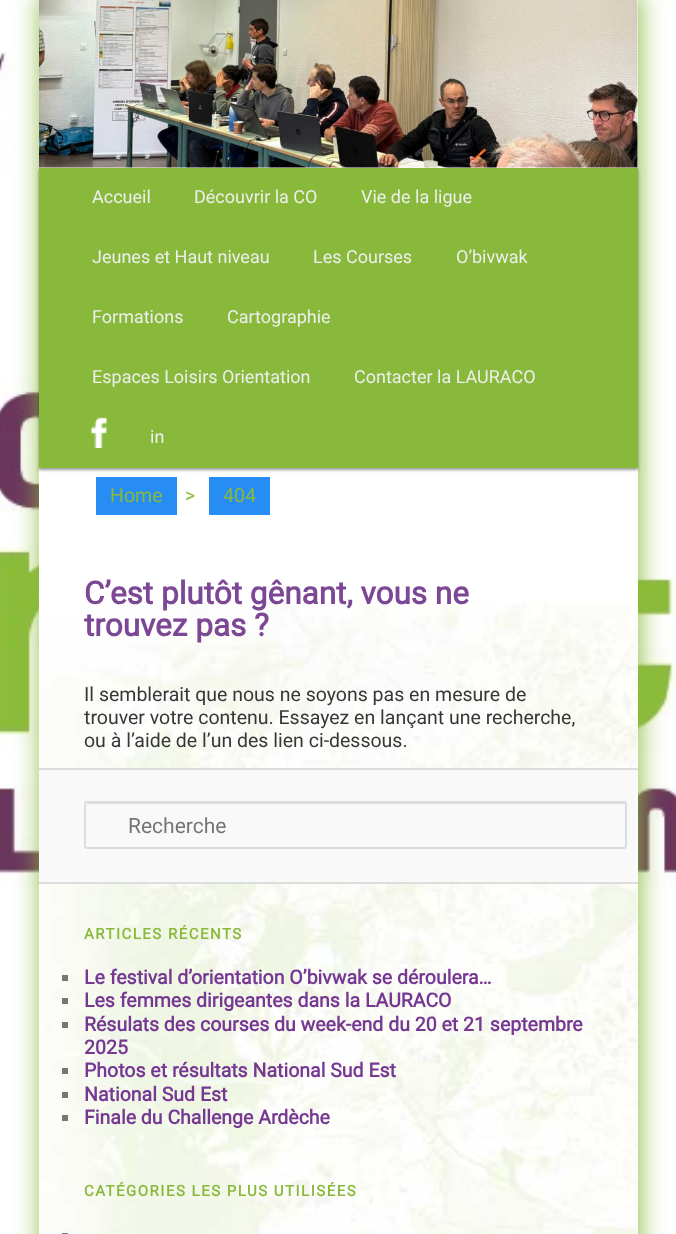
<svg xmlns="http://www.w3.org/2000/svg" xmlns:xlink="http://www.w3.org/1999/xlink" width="676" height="1234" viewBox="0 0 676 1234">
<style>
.cls-1{font:18px Roboto;fill:#eeeeee}
.cls-2{font:19.5px Roboto;fill:#89b93b}
.cls-3{font:bold 31.5px Roboto;fill:#7c4795}
.cls-4{font:19.5px Roboto;fill:#373737}
.cls-5{font:21px Roboto;fill:#757575}
.cls-6{font:bold 15px Roboto;letter-spacing:1.5px;fill:#89b93b}
.cls-7{font:bold 19.5px Roboto;fill:#763893}
</style>
<rect width="100%" height="100%" fill="#ffffff"/>
<image xlink:href="image0.png" x="0" y="51" width="676" height="836"/>
<rect fill="#89b93b" filter="blur(13.5px)" x="41" y="-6" width="598" height="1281"/>
<rect fill="#ffffff" x="39" y="0" width="599" height="1234"/>
<rect fill="#000000" fill-opacity="0.4" filter="blur(1.5px)" x="39" y="170" width="599" height="300"/>
<image xlink:href="image1.png" x="39" y="0" width="599" height="168"/>
<rect fill="#89b93b" x="39" y="168" width="599" height="300"/>
<image xlink:href="image2.png" x="91" y="417" width="16" height="31"/>
<rect fill="#278df4" x="96" y="477" width="81" height="38"/>
<rect fill="#278df4" x="209" y="477" width="61" height="38"/>
<image xlink:href="image3.png" x="39" y="603" width="599" height="631"/>
<rect fill="#f9f9f9" x="39" y="770" width="599" height="112"/>
<rect fill="#dddddd" x="39" y="768" width="599" height="2"/>
<rect fill="#dddddd" x="39" y="882" width="599" height="2"/>
<path fill="#e0e0e0" d="M87 804H624C625 804 626 805 626 806C626 805 626 804 625 803H88L86 804V806C86 805 86 804 87 804Z"/>
<rect fill="none" stroke="#dddddd" stroke-width="2" x="85" y="802" width="541" height="46" rx="2"/>
<rect fill="#777777" x="62" y="975" width="6" height="6"/>
<rect fill="#777777" x="62" y="998" width="6" height="6"/>
<rect fill="#777777" x="62" y="1022" width="6" height="6"/>
<rect fill="#777777" x="62" y="1068" width="6" height="6"/>
<rect fill="#777777" x="62" y="1092" width="6" height="6"/>
<rect fill="#777777" x="62" y="1115" width="6" height="6"/>
<rect fill="#777777" x="62" y="1233" width="6" height="1"/>
<text class="cls-1" x="92" y="203">Accueil</text>
<text class="cls-1" x="194" y="203">Découvrir la CO</text>
<text class="cls-1" x="361" y="203">Vie de la ligue</text>
<text class="cls-1" x="92" y="263">Jeunes et Haut niveau</text>
<text class="cls-1" x="313" y="263">Les Courses</text>
<text class="cls-1" x="456" y="263">O’bivwak</text>
<text class="cls-1" x="92" y="323">Formations</text>
<text class="cls-1" x="227" y="323">Cartographie</text>
<text class="cls-1" x="92" y="383">Espaces Loisirs Orientation</text>
<text class="cls-1" x="354" y="383">Contacter la LAURACO</text>
<text class="cls-1" x="150" y="443">in</text>
<text class="cls-2" x="110" y="502">Home</text>
<text class="cls-2" x="185" y="502">&gt;</text>
<text class="cls-2" x="223" y="502">404</text>
<text class="cls-3"><tspan x="84" y="604">C’est plutôt gênant, vous ne</tspan><tspan x="84" y="636">trouvez pas ?</tspan></text>
<text class="cls-4"><tspan x="84" y="701">Il semblerait que nous ne soyons pas en mesure de</tspan><tspan x="84" y="724">trouver votre contenu. Essayez en lançant une recherche,</tspan><tspan x="84" y="747">ou à l’aide de l’un des lien ci-dessous.</tspan></text>
<text class="cls-5" x="128" y="833">Recherche</text>
<text class="cls-6" x="84" y="939">ARTICLES RÉCENTS</text>
<text class="cls-7"><tspan x="84" y="984">Le festival d’orientation O’bivwak se déroulera…</tspan><tspan x="84" y="1007">Les femmes dirigeantes dans la LAURACO</tspan><tspan x="84" y="1031">Résulats des courses du week-end du 20 et 21 septembre</tspan><tspan x="84" y="1054">2025</tspan><tspan x="84" y="1077">Photos et résultats National Sud Est</tspan><tspan x="84" y="1101">National Sud Est</tspan><tspan x="84" y="1124">Finale du Challenge Ardèche</tspan></text>
<text class="cls-6" x="84" y="1196">CATÉGORIES LES PLUS UTILISÉES</text>
</svg>
